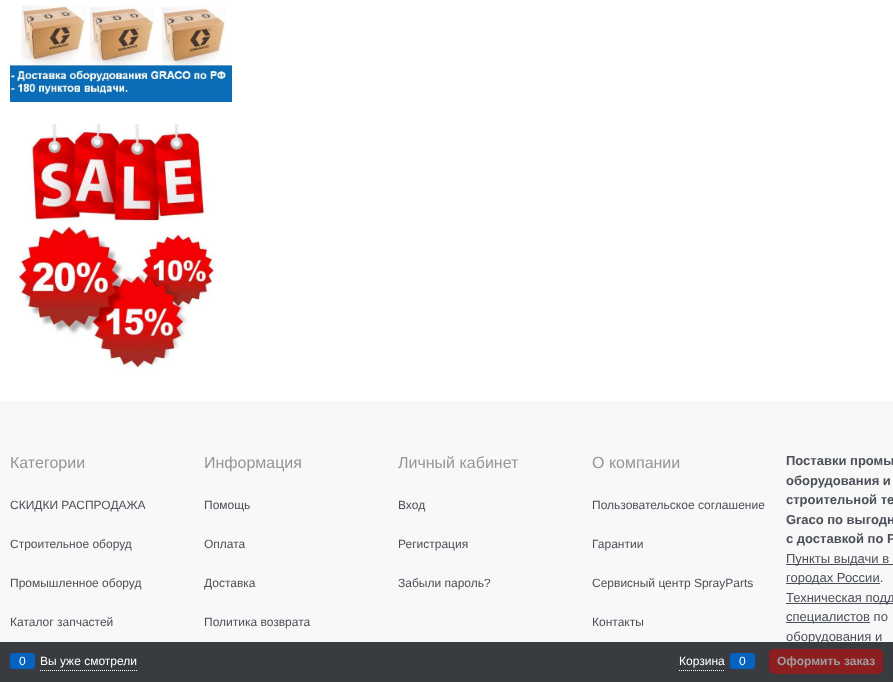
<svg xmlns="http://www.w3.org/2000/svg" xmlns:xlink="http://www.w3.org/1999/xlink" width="893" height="682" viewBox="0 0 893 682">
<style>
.cls-1{font:16px Liberation Sans;fill:#94969b}
.cls-2{font:12px Liberation Sans;fill:#4b4f58}
.cls-3{font:bold 13px Liberation Sans;fill:#4b4f58}
.cls-4{font:13px Liberation Sans;fill:#4b4f58}
.cls-5{font:12px Liberation Sans;fill:#ffffff}
.cls-6{font:bold 12px Liberation Sans;fill:#9c9ea0}
</style>
<rect width="100%" height="100%" fill="#ffffff"/>
<image xlink:href="image0.png" x="10" y="5" width="222" height="97"/>
<image xlink:href="image1.png" x="16" y="124" width="200" height="245"/>
<rect fill="#f8f8f8" x="0" y="401" width="893" height="241"/>
<rect fill="#4b4f58" x="786" y="564" width="107" height="1"/>
<rect fill="#4b4f58" x="786" y="583" width="94" height="1"/>
<rect fill="#4b4f58" x="786" y="603" width="107" height="1"/>
<rect fill="#4b4f58" x="786" y="622" width="84" height="1"/>
<text class="cls-1" x="10" y="468">Категории</text>
<text class="cls-2" x="10" y="509">СКИДКИ РАСПРОДАЖА</text>
<text class="cls-2" x="10" y="548">Строительное оборуд</text>
<text class="cls-2" x="10" y="587">Промышленное оборуд</text>
<text class="cls-2" x="10" y="626">Каталог запчастей</text>
<text class="cls-1" x="204" y="468">Информация</text>
<text class="cls-2" x="204" y="509">Помощь</text>
<text class="cls-2" x="204" y="548">Оплата</text>
<text class="cls-2" x="204" y="587">Доставка</text>
<text class="cls-2" x="204" y="626">Политика возврата</text>
<text class="cls-1" x="398" y="468">Личный кабинет</text>
<text class="cls-2" x="398" y="509">Вход</text>
<text class="cls-2" x="398" y="548">Регистрация</text>
<text class="cls-2" x="398" y="587">Забыли пароль?</text>
<text class="cls-1" x="592" y="468">О компании</text>
<text class="cls-2" x="592" y="509">Пользовательское соглашение</text>
<text class="cls-2" x="592" y="548">Гарантии</text>
<text class="cls-2" x="592" y="587">Сервисный центр SprayParts</text>
<text class="cls-2" x="592" y="626">Контакты</text>
<text class="cls-3"><tspan x="786" y="465">Поставки промы</tspan><tspan x="786" y="485">оборудования и</tspan><tspan x="786" y="504">строительной те</tspan><tspan x="786" y="524">Graco по выгодн</tspan><tspan x="786" y="543">с доставкой по Р</tspan></text>
<text class="cls-4"><tspan x="786" y="563">Пункты выдачи в</tspan><tspan x="786" y="582">городах России.</tspan><tspan x="786" y="602">Техническая подд</tspan><tspan x="786" y="621">специалистов по</tspan><tspan x="786" y="641">оборудования и</tspan></text>
<rect fill="#383c40" x="0" y="642" width="893" height="40"/>
<path fill="none" stroke="#ffffff" stroke-dasharray="1 1" d="M40 670.5H137"/>
<rect fill="#0662c1" x="10" y="653" width="25" height="16" rx="3"/>
<text class="cls-5" x="19" y="665">0</text>
<text class="cls-5" x="40" y="665">Вы уже смотрели</text>
<path fill="none" stroke="#ffffff" stroke-dasharray="1 1" d="M679 670.5H725"/>
<text class="cls-5" x="679" y="665">Корзина</text>
<rect fill="#0662c1" x="730" y="653" width="25" height="16" rx="3"/>
<text class="cls-5" x="739" y="665">0</text>
<rect fill="#8d1e20" x="769" y="649" width="114" height="25" rx="5"/>
<text class="cls-6" x="777" y="665">Оформить заказ</text>
</svg>
